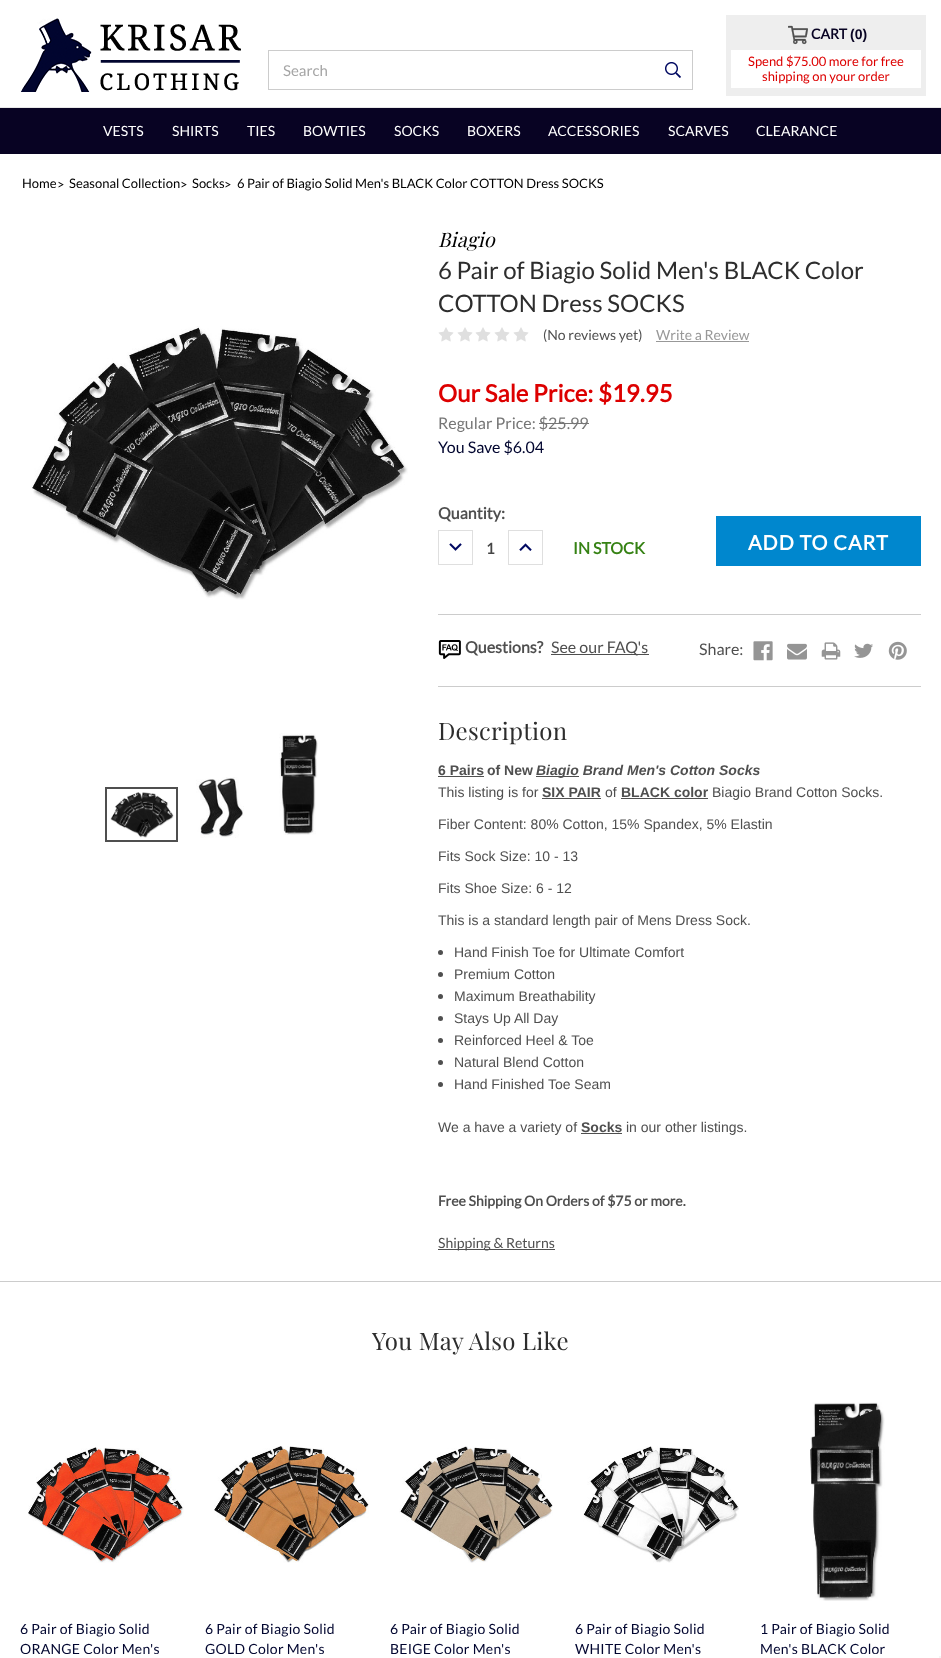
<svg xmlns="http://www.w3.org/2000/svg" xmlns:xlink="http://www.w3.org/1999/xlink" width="941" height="1658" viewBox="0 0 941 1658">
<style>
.cls-1{font:15px Lato;fill:#a5a5a5}
.cls-2{font:bold 14px Lato;fill:#080323}
.cls-3{font:bold 14px Liberation Sans;fill:#080323}
.cls-4{font:13px Lato;fill:#dd0000}
.cls-5{font:14px Lato;fill:#ffffff}
.cls-6{font:13px Lato;fill:#000000}
.cls-7{font:italic 20px Playfair Display;letter-spacing:0.25px;fill:#000000}
.cls-8{font:24px Lato;fill:#2d2d2d}
.cls-9{font:14px Lato;fill:#4f4f4f}
.cls-10{font:14px Lato;fill:#989898}
.cls-11{font:bold 24px Lato;fill:#dd0000}
.cls-12{font:16px Lato;fill:#767676}
.cls-13{font:16px Lato;fill:#01052f}
.cls-14{font:bold 16px Lato;fill:#4f4f4f}
.cls-15{font:bold 15px Lato;fill:#454545}
.cls-16{font:bold 16px Lato;fill:#368214}
.cls-17{font:bold 20px Lato;letter-spacing:1px;fill:#ffffff}
.cls-18{font:16px Lato;fill:#4f4f4f}
.cls-19{font:24px Playfair Display;letter-spacing:0.25px;fill:#2d2d2d}
.cls-20{font:bold 14px Liberation Sans;fill:#4f4f4f}
.cls-21{font:italic bold 14px Liberation Sans;fill:#4f4f4f}
.cls-22{font:14px Liberation Sans;fill:#4f4f4f}
.cls-23{font:bold 14px Lato;fill:#4f4f4f}
.cls-24{font:14px Lato;letter-spacing:0.25px;fill:#01052f}
</style>
<rect width="100%" height="100%" fill="#ffffff"/>
<rect fill="#e8e8e8" x="0" y="107" width="941" height="1"/>
<image xlink:href="image0.png" x="20" y="18" width="221" height="74"/>
<rect fill="none" stroke="#cccccc" x="268.5" y="50.5" width="424" height="39"/>
<image xlink:href="image1.png" x="665" y="62" width="16" height="16"/>
<rect fill="#eeeeee" x="726" y="15" width="200" height="81"/>
<image xlink:href="image2.png" x="788" y="25" width="20" height="20"/>
<rect fill="#ffffff" x="731" y="50" width="190" height="38"/>
<rect fill="#080323" x="0" y="108" width="941" height="46"/>
<image xlink:href="image3.png" x="31" y="326" width="377" height="274"/>
<rect fill="none" stroke="#4f4f4f" stroke-width="2" x="106" y="788" width="71" height="53"/>
<image xlink:href="image4.png" x="110" y="792" width="64" height="46"/>
<image xlink:href="image5.png" x="196" y="777" width="48" height="61"/>
<image xlink:href="image6.png" x="279" y="733" width="39" height="102"/>
<image xlink:href="image7.png" x="438" y="327" width="16" height="15"/>
<image xlink:href="image7.png" x="457" y="327" width="16" height="15"/>
<image xlink:href="image7.png" x="475" y="327" width="16" height="15"/>
<image xlink:href="image7.png" x="494" y="327" width="16" height="15"/>
<image xlink:href="image7.png" x="513" y="327" width="16" height="15"/>
<rect fill="#989898" x="656" y="341" width="93" height="1"/>
<rect fill="#767676" x="539" y="423" width="50" height="1"/>
<rect fill="none" stroke="#dfdfdf" x="438.5" y="530.5" width="34" height="34"/>
<image xlink:href="image8.png" x="449" y="543" width="13" height="8"/>
<rect fill="none" stroke="#dfdfdf" x="508.5" y="530.5" width="34" height="34"/>
<image xlink:href="image9.png" x="519" y="543" width="13" height="8"/>
<rect fill="#0087ce" x="716" y="516" width="205" height="50"/>
<rect fill="#cccccc" x="438" y="614" width="483" height="1"/>
<image xlink:href="image10.png" x="438" y="640" width="23" height="19"/>
<rect fill="#4f4f4f" x="551" y="654" width="98" height="1"/>
<image xlink:href="image11.png" x="753" y="641" width="20" height="20"/>
<image xlink:href="image12.png" x="787" y="643" width="20" height="17"/>
<image xlink:href="image13.png" x="821" y="642" width="20" height="18"/>
<image xlink:href="image14.png" x="854" y="643" width="19" height="15"/>
<image xlink:href="image15.png" x="888" y="641" width="19" height="19"/>
<rect fill="#cccccc" x="438" y="686" width="483" height="1"/>
<rect fill="#4f4f4f" x="438" y="776" width="46" height="1"/>
<rect fill="#4f4f4f" x="536" y="776" width="43" height="1"/>
<rect fill="#4f4f4f" x="542" y="798" width="59" height="1"/>
<rect fill="#4f4f4f" x="621" y="798" width="87" height="1"/>
<circle fill="#4f4f4f" cx="440.5" cy="952.5" r="2.5"/>
<circle fill="#4f4f4f" cx="440.5" cy="974.5" r="2.5"/>
<circle fill="#4f4f4f" cx="440.5" cy="996.5" r="2.5"/>
<circle fill="#4f4f4f" cx="440.5" cy="1018.5" r="2.5"/>
<circle fill="#4f4f4f" cx="440.5" cy="1040.5" r="2.5"/>
<circle fill="#4f4f4f" cx="440.5" cy="1062.5" r="2.5"/>
<circle fill="#4f4f4f" cx="440.5" cy="1084.5" r="2.5"/>
<rect fill="#4f4f4f" x="581" y="1133" width="41" height="1"/>
<rect fill="#4f4f4f" x="438" y="1249" width="117" height="1"/>
<rect fill="#cccccc" x="0" y="1281" width="941" height="1"/>
<image xlink:href="image16.png" x="28" y="1447" width="156" height="116"/>
<image xlink:href="image17.png" x="214" y="1446" width="155" height="117"/>
<image xlink:href="image18.png" x="399" y="1446" width="154" height="117"/>
<image xlink:href="image19.png" x="583" y="1446" width="156" height="117"/>
<image xlink:href="image20.png" x="810" y="1402" width="75" height="199"/>
<rect fill="#f5f5f5" x="939" y="1656" width="2" height="2"/>
<text class="cls-1" x="283" y="76">Search</text>
<text class="cls-2" x="811" y="39">CART</text>
<text class="cls-3" x="850" y="39">(0)</text>
<text class="cls-4" x="748" y="66">Spend $75.00 more for free</text>
<text class="cls-4" x="762" y="81">shipping on your order</text>
<text class="cls-5" x="103" y="136">VESTS</text>
<text class="cls-5" x="172" y="136">SHIRTS</text>
<text class="cls-5" x="247" y="136">TIES</text>
<text class="cls-5" x="303" y="136">BOWTIES</text>
<text class="cls-5" x="394" y="136">SOCKS</text>
<text class="cls-5" x="467" y="136">BOXERS</text>
<text class="cls-5" x="548" y="136">ACCESSORIES</text>
<text class="cls-5" x="668" y="136">SCARVES</text>
<text class="cls-5" x="756" y="136">CLEARANCE</text>
<text class="cls-6" x="22" y="188">Home</text>
<text class="cls-6" x="57" y="189">&gt;</text>
<text class="cls-6" x="69" y="188">Seasonal Collection</text>
<text class="cls-6" x="180" y="189">&gt;</text>
<text class="cls-6" x="192" y="188">Socks</text>
<text class="cls-6" x="224" y="189">&gt;</text>
<text class="cls-6" x="237" y="188">6 Pair of Biagio Solid Men's BLACK Color COTTON Dress SOCKS</text>
<text class="cls-7" x="438" y="247">Biagio</text>
<text class="cls-8"><tspan x="438" y="279">6 Pair of Biagio Solid Men's BLACK Color</tspan><tspan x="438" y="312">COTTON Dress SOCKS</tspan></text>
<text class="cls-9" x="543" y="340">(No reviews yet)</text>
<text class="cls-10" x="656" y="340">Write a Review</text>
<text class="cls-11" x="438" y="402">Our Sale Price: $19.95</text>
<text class="cls-12" x="438" y="429">Regular Price: $25.99</text>
<text class="cls-13" x="438" y="453">You Save $6.04</text>
<text class="cls-14" x="438" y="519">Quantity:</text>
<text class="cls-15" x="486" y="554">1</text>
<text class="cls-16" x="573" y="554">IN STOCK</text>
<text class="cls-17" x="748" y="550">ADD TO CART</text>
<text class="cls-14" x="465" y="653">Questions?</text>
<text class="cls-18" x="551" y="653">See our FAQ's</text>
<text class="cls-18" x="699" y="655">Share:</text>
<text class="cls-19" x="438" y="740">Description</text>
<text class="cls-20" x="438" y="775">6 Pairs</text>
<text class="cls-20" x="487" y="775">of New</text>
<text class="cls-21" x="536" y="775">Biagio Brand Men's Cotton Socks</text>
<text class="cls-22" x="438" y="797">This listing is for</text>
<text class="cls-20" x="542" y="797">SIX PAIR</text>
<text class="cls-22" x="605" y="797">of</text>
<text class="cls-20" x="621" y="797">BLACK color</text>
<text class="cls-22" x="712" y="797">Biagio Brand Cotton Socks.</text>
<text class="cls-22" x="438" y="829">Fiber Content: 80% Cotton, 15% Spandex, 5% Elastin</text>
<text class="cls-22" x="438" y="861">Fits Sock Size: 10 - 13</text>
<text class="cls-22" x="438" y="893">Fits Shoe Size: 6 - 12</text>
<text class="cls-22" x="438" y="925">This is a standard length pair of Mens Dress Sock.</text>
<text class="cls-22"><tspan x="454" y="957">Hand Finish Toe for Ultimate Comfort</tspan><tspan x="454" y="979">Premium Cotton</tspan><tspan x="454" y="1001">Maximum Breathability</tspan><tspan x="454" y="1023">Stays Up All Day</tspan><tspan x="454" y="1045">Reinforced Heel &amp; Toe</tspan><tspan x="454" y="1067">Natural Blend Cotton</tspan><tspan x="454" y="1089">Hand Finished Toe Seam</tspan></text>
<text class="cls-22" x="438" y="1132">We a have a variety of</text>
<text class="cls-20" x="581" y="1132">Socks</text>
<text class="cls-22" x="626" y="1132">in our other listings.</text>
<text class="cls-23" x="438" y="1206">Free Shipping On Orders of $75 or more.</text>
<text class="cls-9" x="438" y="1248">Shipping &amp; Returns</text>
<text class="cls-19" x="372" y="1350">You May Also Like</text>
<text class="cls-24"><tspan x="20" y="1634">6 Pair of Biagio Solid</tspan><tspan x="20" y="1654">ORANGE Color Men's</tspan></text>
<text class="cls-24"><tspan x="205" y="1634">6 Pair of Biagio Solid</tspan><tspan x="205" y="1654">GOLD Color Men's</tspan></text>
<text class="cls-24"><tspan x="390" y="1634">6 Pair of Biagio Solid</tspan><tspan x="390" y="1654">BEIGE Color Men's</tspan></text>
<text class="cls-24"><tspan x="575" y="1634">6 Pair of Biagio Solid</tspan><tspan x="575" y="1654">WHITE Color Men's</tspan></text>
<text class="cls-24"><tspan x="760" y="1634">1 Pair of Biagio Solid</tspan><tspan x="760" y="1654">Men's BLACK Color</tspan></text>
</svg>
